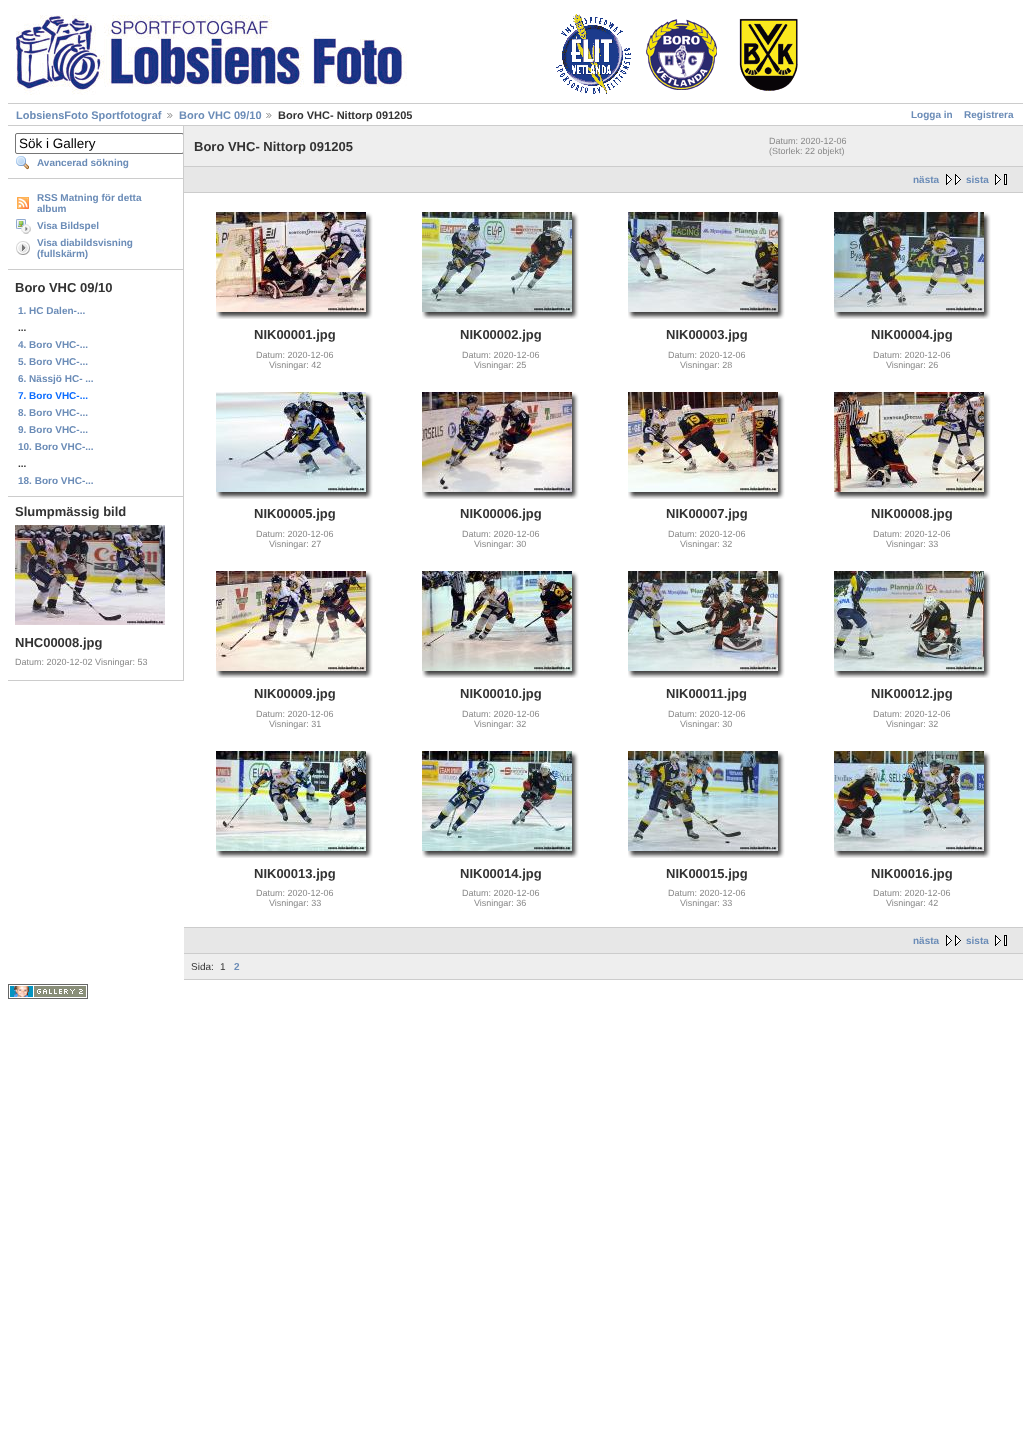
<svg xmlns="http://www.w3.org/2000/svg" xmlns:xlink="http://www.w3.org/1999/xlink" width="1031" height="1432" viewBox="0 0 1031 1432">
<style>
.cls-1{font:bold 11px Liberation Sans;fill:#6b8cb7}
.cls-2{font:bold 11px Liberation Sans;fill:#333333}
.cls-3{font:bold 10px Liberation Sans;fill:#6b8cb7}
.cls-4{font:13.5px Liberation Sans;fill:#000000}
.cls-5{font:bold 13px Liberation Sans;fill:#333333}
.cls-6{font:bold 10px Liberation Sans;fill:#333333}
.cls-7{font:bold 10px Liberation Sans;fill:#0b6cff}
.cls-8{font:9px Liberation Sans;fill:#888888}
.cls-9{font:10px Liberation Sans;fill:#333333}
</style>
<defs>
<clipPath id="clip1"><rect x="8" y="126" width="175" height="555"/></clipPath>
</defs>
<rect width="100%" height="100%" fill="#ffffff"/>
<image xlink:href="image0.png" x="16" y="14" width="782" height="81"/>
<rect fill="#cccccc" x="8" y="103" width="1015" height="1"/>
<rect fill="#cccccc" x="8" y="125" width="1015" height="1"/>
<image xlink:href="image1.png" x="167" y="113" width="6" height="5"/>
<image xlink:href="image1.png" x="266" y="113" width="6" height="5"/>
<rect fill="#cccccc" x="183" y="126" width="1" height="555"/>
<rect fill="#cccccc" x="8" y="178" width="175" height="1"/>
<g clip-path="url(#clip1)">
<rect fill="none" stroke="#767676" x="15.5" y="133.5" width="168" height="20" rx="1.5"/>
</g>
<image xlink:href="image2.png" x="16" y="156" width="13" height="14"/>
<rect fill="#cccccc" x="8" y="269" width="175" height="1"/>
<image xlink:href="image3.png" x="17" y="197" width="12" height="12"/>
<image xlink:href="image4.png" x="16" y="219" width="15" height="15"/>
<image xlink:href="image5.png" x="16" y="241" width="14" height="14"/>
<rect fill="#cccccc" x="8" y="496" width="175" height="1"/>
<rect fill="#cccccc" x="8" y="680" width="175" height="1"/>
<image xlink:href="image6.png" x="15" y="525" width="150" height="100"/>
<rect fill="#eeeeee" x="184" y="126" width="839" height="40"/>
<rect fill="#cccccc" x="184" y="166" width="839" height="1"/>
<rect fill="#e7e7e7" x="184" y="167" width="839" height="25"/>
<rect fill="#cccccc" x="184" y="192" width="839" height="1"/>
<image xlink:href="image7.png" x="946" y="174" width="15" height="11"/>
<image xlink:href="image8.png" x="995" y="174" width="12" height="11"/>
<rect fill="#cccccc" x="184" y="927" width="839" height="1"/>
<image xlink:href="image9.png" x="216" y="212" width="150" height="100"/>
<image xlink:href="image10.png" x="366" y="212" width="7" height="10"/>
<image xlink:href="image11.png" x="366" y="222" width="7" height="90"/>
<image xlink:href="image12.png" x="216" y="312" width="9" height="7"/>
<image xlink:href="image13.png" x="225" y="312" width="141" height="7"/>
<image xlink:href="image14.png" x="366" y="312" width="7" height="7"/>
<image xlink:href="image15.png" x="422" y="212" width="150" height="100"/>
<image xlink:href="image10.png" x="572" y="212" width="7" height="10"/>
<image xlink:href="image11.png" x="572" y="222" width="7" height="90"/>
<image xlink:href="image12.png" x="422" y="312" width="9" height="7"/>
<image xlink:href="image13.png" x="431" y="312" width="141" height="7"/>
<image xlink:href="image14.png" x="572" y="312" width="7" height="7"/>
<image xlink:href="image16.png" x="628" y="212" width="150" height="100"/>
<image xlink:href="image10.png" x="778" y="212" width="7" height="10"/>
<image xlink:href="image11.png" x="778" y="222" width="7" height="90"/>
<image xlink:href="image12.png" x="628" y="312" width="9" height="7"/>
<image xlink:href="image13.png" x="637" y="312" width="141" height="7"/>
<image xlink:href="image14.png" x="778" y="312" width="7" height="7"/>
<image xlink:href="image17.png" x="834" y="212" width="150" height="100"/>
<image xlink:href="image10.png" x="984" y="212" width="7" height="10"/>
<image xlink:href="image11.png" x="984" y="222" width="7" height="90"/>
<image xlink:href="image12.png" x="834" y="312" width="9" height="7"/>
<image xlink:href="image13.png" x="843" y="312" width="141" height="7"/>
<image xlink:href="image14.png" x="984" y="312" width="7" height="7"/>
<image xlink:href="image18.png" x="216" y="392" width="150" height="100"/>
<image xlink:href="image10.png" x="366" y="392" width="7" height="10"/>
<image xlink:href="image11.png" x="366" y="402" width="7" height="90"/>
<image xlink:href="image12.png" x="216" y="492" width="9" height="7"/>
<image xlink:href="image13.png" x="225" y="492" width="141" height="7"/>
<image xlink:href="image14.png" x="366" y="492" width="7" height="7"/>
<image xlink:href="image19.png" x="422" y="392" width="150" height="100"/>
<image xlink:href="image10.png" x="572" y="392" width="7" height="10"/>
<image xlink:href="image11.png" x="572" y="402" width="7" height="90"/>
<image xlink:href="image12.png" x="422" y="492" width="9" height="7"/>
<image xlink:href="image13.png" x="431" y="492" width="141" height="7"/>
<image xlink:href="image14.png" x="572" y="492" width="7" height="7"/>
<image xlink:href="image20.png" x="628" y="392" width="150" height="100"/>
<image xlink:href="image10.png" x="778" y="392" width="7" height="10"/>
<image xlink:href="image11.png" x="778" y="402" width="7" height="90"/>
<image xlink:href="image12.png" x="628" y="492" width="9" height="7"/>
<image xlink:href="image13.png" x="637" y="492" width="141" height="7"/>
<image xlink:href="image14.png" x="778" y="492" width="7" height="7"/>
<image xlink:href="image21.png" x="834" y="392" width="150" height="100"/>
<image xlink:href="image10.png" x="984" y="392" width="7" height="10"/>
<image xlink:href="image11.png" x="984" y="402" width="7" height="90"/>
<image xlink:href="image12.png" x="834" y="492" width="9" height="7"/>
<image xlink:href="image13.png" x="843" y="492" width="141" height="7"/>
<image xlink:href="image14.png" x="984" y="492" width="7" height="7"/>
<image xlink:href="image22.png" x="216" y="571" width="150" height="100"/>
<image xlink:href="image10.png" x="366" y="571" width="7" height="10"/>
<image xlink:href="image11.png" x="366" y="581" width="7" height="90"/>
<image xlink:href="image12.png" x="216" y="671" width="9" height="7"/>
<image xlink:href="image13.png" x="225" y="671" width="141" height="7"/>
<image xlink:href="image14.png" x="366" y="671" width="7" height="7"/>
<image xlink:href="image23.png" x="422" y="571" width="150" height="100"/>
<image xlink:href="image10.png" x="572" y="571" width="7" height="10"/>
<image xlink:href="image11.png" x="572" y="581" width="7" height="90"/>
<image xlink:href="image12.png" x="422" y="671" width="9" height="7"/>
<image xlink:href="image13.png" x="431" y="671" width="141" height="7"/>
<image xlink:href="image14.png" x="572" y="671" width="7" height="7"/>
<image xlink:href="image24.png" x="628" y="571" width="150" height="100"/>
<image xlink:href="image10.png" x="778" y="571" width="7" height="10"/>
<image xlink:href="image11.png" x="778" y="581" width="7" height="90"/>
<image xlink:href="image12.png" x="628" y="671" width="9" height="7"/>
<image xlink:href="image13.png" x="637" y="671" width="141" height="7"/>
<image xlink:href="image14.png" x="778" y="671" width="7" height="7"/>
<image xlink:href="image25.png" x="834" y="571" width="150" height="100"/>
<image xlink:href="image10.png" x="984" y="571" width="7" height="10"/>
<image xlink:href="image11.png" x="984" y="581" width="7" height="90"/>
<image xlink:href="image12.png" x="834" y="671" width="9" height="7"/>
<image xlink:href="image13.png" x="843" y="671" width="141" height="7"/>
<image xlink:href="image14.png" x="984" y="671" width="7" height="7"/>
<image xlink:href="image26.png" x="216" y="751" width="150" height="100"/>
<image xlink:href="image10.png" x="366" y="751" width="7" height="10"/>
<image xlink:href="image11.png" x="366" y="761" width="7" height="90"/>
<image xlink:href="image12.png" x="216" y="851" width="9" height="7"/>
<image xlink:href="image13.png" x="225" y="851" width="141" height="7"/>
<image xlink:href="image14.png" x="366" y="851" width="7" height="7"/>
<image xlink:href="image27.png" x="422" y="751" width="150" height="100"/>
<image xlink:href="image10.png" x="572" y="751" width="7" height="10"/>
<image xlink:href="image11.png" x="572" y="761" width="7" height="90"/>
<image xlink:href="image12.png" x="422" y="851" width="9" height="7"/>
<image xlink:href="image13.png" x="431" y="851" width="141" height="7"/>
<image xlink:href="image14.png" x="572" y="851" width="7" height="7"/>
<image xlink:href="image28.png" x="628" y="751" width="150" height="100"/>
<image xlink:href="image10.png" x="778" y="751" width="7" height="10"/>
<image xlink:href="image11.png" x="778" y="761" width="7" height="90"/>
<image xlink:href="image12.png" x="628" y="851" width="9" height="7"/>
<image xlink:href="image13.png" x="637" y="851" width="141" height="7"/>
<image xlink:href="image14.png" x="778" y="851" width="7" height="7"/>
<image xlink:href="image29.png" x="834" y="751" width="150" height="100"/>
<image xlink:href="image10.png" x="984" y="751" width="7" height="10"/>
<image xlink:href="image11.png" x="984" y="761" width="7" height="90"/>
<image xlink:href="image12.png" x="834" y="851" width="9" height="7"/>
<image xlink:href="image13.png" x="843" y="851" width="141" height="7"/>
<image xlink:href="image14.png" x="984" y="851" width="7" height="7"/>
<rect fill="#e7e7e7" x="184" y="928" width="839" height="25"/>
<rect fill="#cccccc" x="184" y="953" width="839" height="1"/>
<image xlink:href="image7.png" x="946" y="935" width="15" height="11"/>
<image xlink:href="image8.png" x="995" y="935" width="12" height="11"/>
<rect fill="#eeeeee" x="184" y="954" width="839" height="25"/>
<rect fill="#cccccc" x="184" y="979" width="839" height="1"/>
<image xlink:href="image30.png" x="8" y="984" width="80" height="15"/>
<text class="cls-1" x="16" y="119">LobsiensFoto Sportfotograf</text>
<text class="cls-1" x="179" y="119">Boro VHC 09/10</text>
<text class="cls-2" x="278" y="119">Boro VHC- Nittorp 091205</text>
<text class="cls-3" x="911" y="118">Logga in</text>
<text class="cls-3" x="964" y="118">Registrera</text>
<text class="cls-4" x="19" y="148">Sök i Gallery</text>
<text class="cls-3" x="37" y="166">Avancerad sökning</text>
<text class="cls-3"><tspan x="37" y="201">RSS Matning för detta</tspan><tspan x="37" y="212">album</tspan><tspan x="37" y="229">Visa Bildspel</tspan><tspan x="37" y="246">Visa diabildsvisning</tspan><tspan x="37" y="257">(fullskärm)</tspan></text>
<text class="cls-5" x="15" y="292">Boro VHC 09/10</text>
<text class="cls-3" x="18" y="314">1. HC Dalen-...</text>
<text class="cls-6" x="18" y="331">...</text>
<text class="cls-3"><tspan x="18" y="348">4. Boro VHC-...</tspan><tspan x="18" y="365">5. Boro VHC-...</tspan><tspan x="18" y="382">6. Nässjö HC- ...</tspan></text>
<text class="cls-7" x="18" y="399">7. Boro VHC-...</text>
<text class="cls-3"><tspan x="18" y="416">8. Boro VHC-...</tspan><tspan x="18" y="433">9. Boro VHC-...</tspan><tspan x="18" y="450">10. Boro VHC-...</tspan></text>
<text class="cls-6" x="18" y="467">...</text>
<text class="cls-3" x="18" y="484">18. Boro VHC-...</text>
<text class="cls-5" x="15" y="516">Slumpmässig bild</text>
<text class="cls-5" x="15" y="647">NHC00008.jpg</text>
<text class="cls-8" x="15" y="665">Datum: 2020-12-02 Visningar: 53</text>
<text class="cls-5" x="194" y="151">Boro VHC- Nittorp 091205</text>
<text class="cls-8"><tspan x="769" y="144">Datum: 2020-12-06</tspan><tspan x="769" y="154">(Storlek: 22 objekt)</tspan></text>
<text class="cls-3" x="913" y="183">nästa</text>
<text class="cls-3" x="966" y="183">sista</text>
<text class="cls-5" x="254" y="339">NIK00001.jpg</text>
<text class="cls-8" x="256" y="358">Datum: 2020-12-06</text>
<text class="cls-8" x="269" y="368">Visningar: 42</text>
<text class="cls-5" x="460" y="339">NIK00002.jpg</text>
<text class="cls-8" x="462" y="358">Datum: 2020-12-06</text>
<text class="cls-8" x="474" y="368">Visningar: 25</text>
<text class="cls-5" x="666" y="339">NIK00003.jpg</text>
<text class="cls-8" x="668" y="358">Datum: 2020-12-06</text>
<text class="cls-8" x="680" y="368">Visningar: 28</text>
<text class="cls-5" x="871" y="339">NIK00004.jpg</text>
<text class="cls-8" x="873" y="358">Datum: 2020-12-06</text>
<text class="cls-8" x="886" y="368">Visningar: 26</text>
<text class="cls-5" x="254" y="518">NIK00005.jpg</text>
<text class="cls-8" x="256" y="537">Datum: 2020-12-06</text>
<text class="cls-8" x="269" y="547">Visningar: 27</text>
<text class="cls-5" x="460" y="518">NIK00006.jpg</text>
<text class="cls-8" x="462" y="537">Datum: 2020-12-06</text>
<text class="cls-8" x="474" y="547">Visningar: 30</text>
<text class="cls-5" x="666" y="518">NIK00007.jpg</text>
<text class="cls-8" x="668" y="537">Datum: 2020-12-06</text>
<text class="cls-8" x="680" y="547">Visningar: 32</text>
<text class="cls-5" x="871" y="518">NIK00008.jpg</text>
<text class="cls-8" x="873" y="537">Datum: 2020-12-06</text>
<text class="cls-8" x="886" y="547">Visningar: 33</text>
<text class="cls-5" x="254" y="698">NIK00009.jpg</text>
<text class="cls-8" x="256" y="717">Datum: 2020-12-06</text>
<text class="cls-8" x="269" y="727">Visningar: 31</text>
<text class="cls-5" x="460" y="698">NIK00010.jpg</text>
<text class="cls-8" x="462" y="717">Datum: 2020-12-06</text>
<text class="cls-8" x="474" y="727">Visningar: 32</text>
<text class="cls-5" x="666" y="698">NIK00011.jpg</text>
<text class="cls-8" x="668" y="717">Datum: 2020-12-06</text>
<text class="cls-8" x="680" y="727">Visningar: 30</text>
<text class="cls-5" x="871" y="698">NIK00012.jpg</text>
<text class="cls-8" x="873" y="717">Datum: 2020-12-06</text>
<text class="cls-8" x="886" y="727">Visningar: 32</text>
<text class="cls-5" x="254" y="878">NIK00013.jpg</text>
<text class="cls-8" x="256" y="896">Datum: 2020-12-06</text>
<text class="cls-8" x="269" y="906">Visningar: 33</text>
<text class="cls-5" x="460" y="878">NIK00014.jpg</text>
<text class="cls-8" x="462" y="896">Datum: 2020-12-06</text>
<text class="cls-8" x="474" y="906">Visningar: 36</text>
<text class="cls-5" x="666" y="878">NIK00015.jpg</text>
<text class="cls-8" x="668" y="896">Datum: 2020-12-06</text>
<text class="cls-8" x="680" y="906">Visningar: 33</text>
<text class="cls-5" x="871" y="878">NIK00016.jpg</text>
<text class="cls-8" x="873" y="896">Datum: 2020-12-06</text>
<text class="cls-8" x="886" y="906">Visningar: 42</text>
<text class="cls-3" x="913" y="944">nästa</text>
<text class="cls-3" x="966" y="944">sista</text>
<text class="cls-9" x="191" y="970">Sida:</text>
<text class="cls-9" x="220" y="970">1</text>
<text class="cls-3" x="234" y="970">2</text>
</svg>
